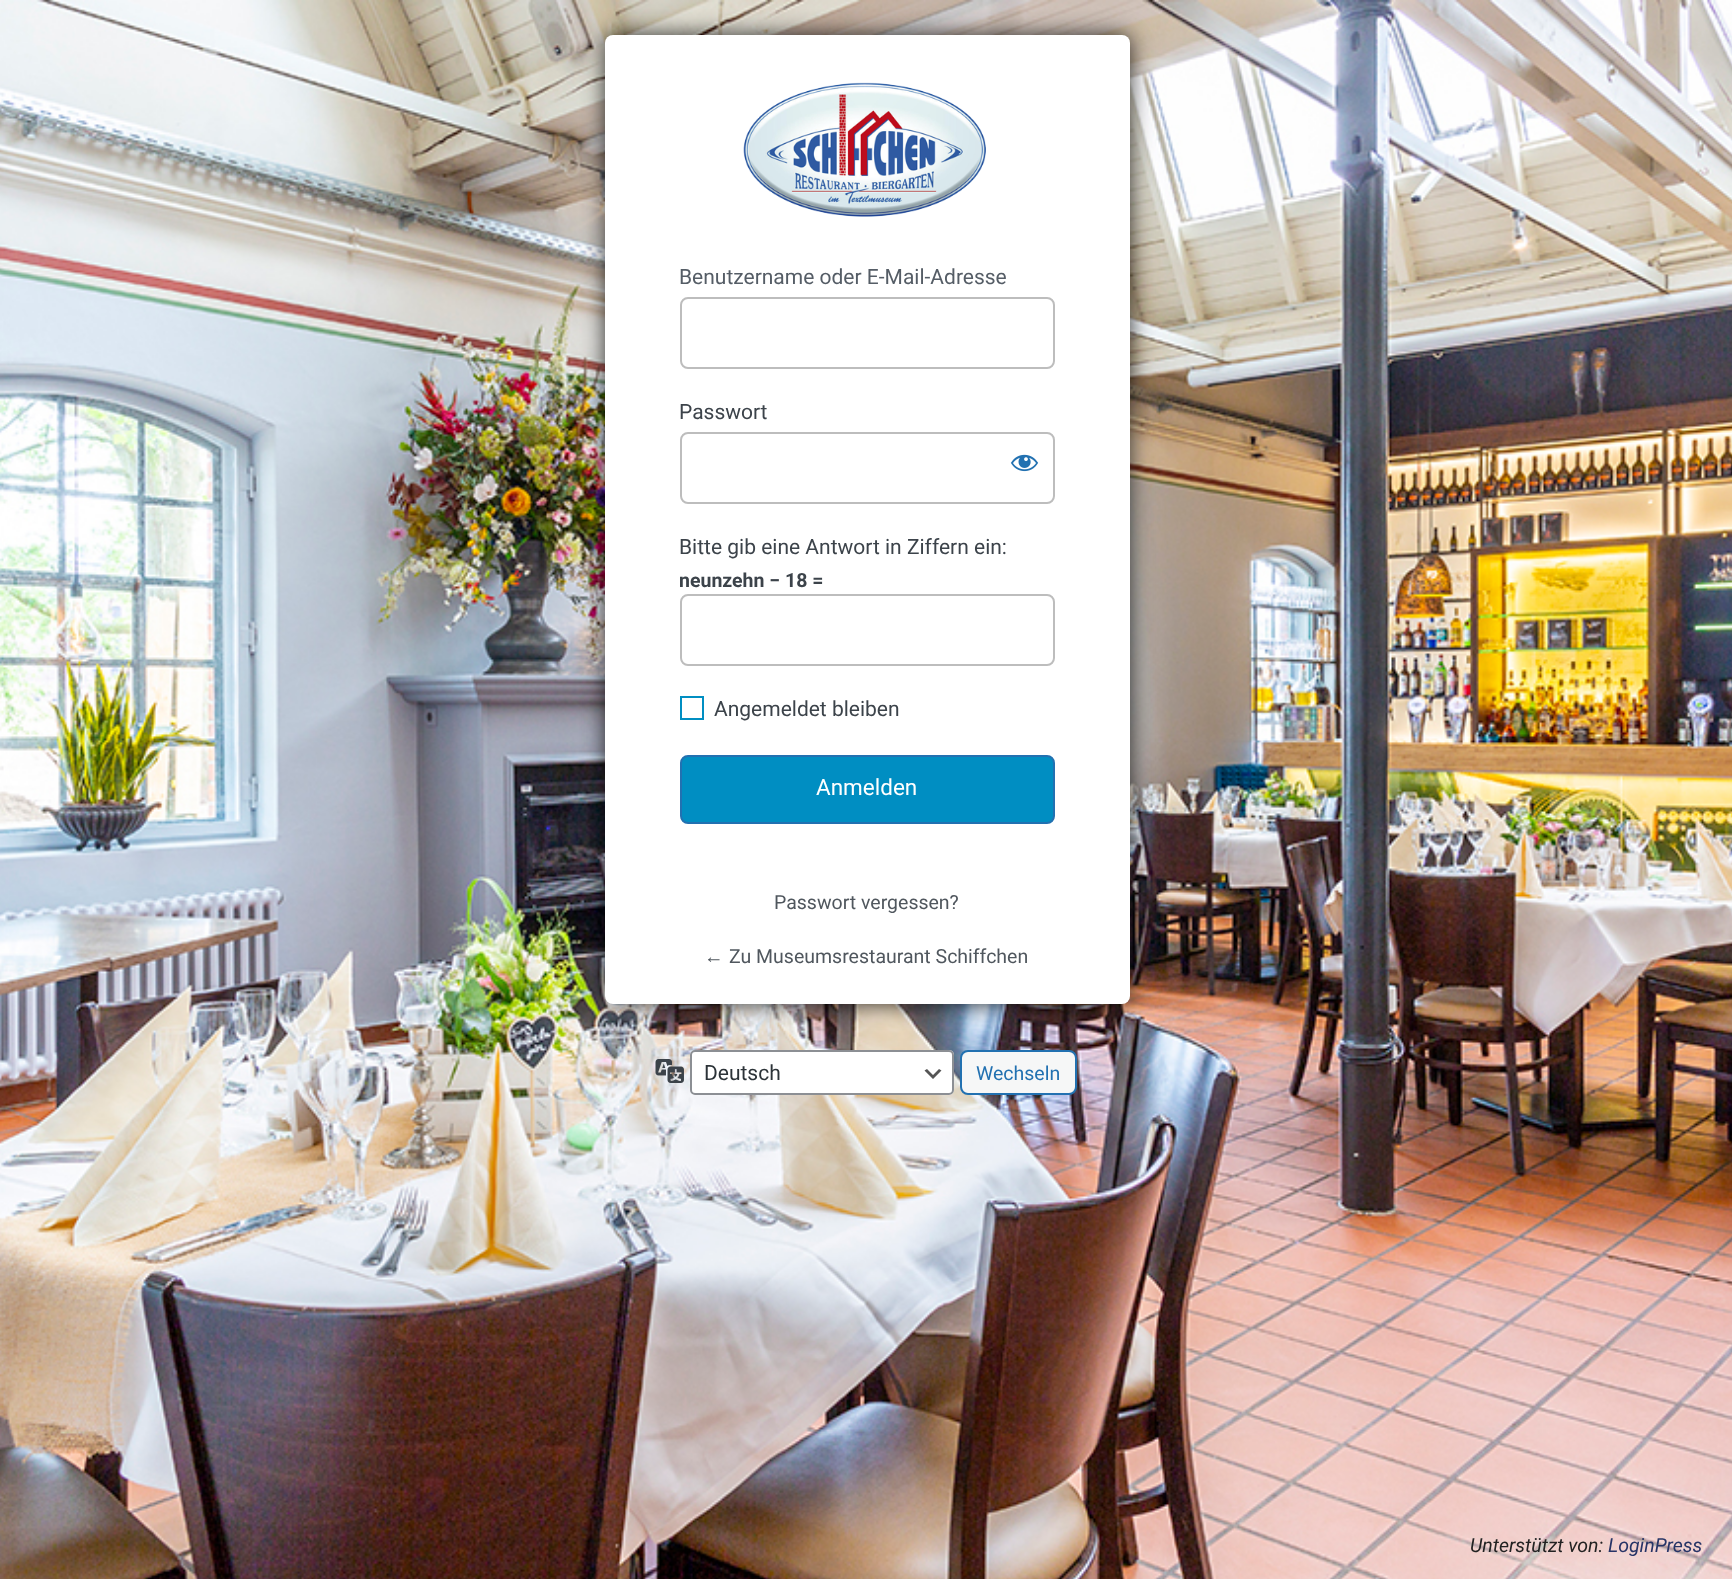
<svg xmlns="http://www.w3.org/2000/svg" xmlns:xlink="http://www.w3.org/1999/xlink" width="1732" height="1579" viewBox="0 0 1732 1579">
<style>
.cls-1{font:21px Roboto;fill:#555d66}
.cls-2{font:21px Roboto;fill:#3c434a}
.cls-3{font:bold 19.5px Roboto;fill:#3c434a}
.cls-4{font:22.5px Roboto;fill:#ffffff}
.cls-5{font:19.5px Roboto;fill:#50575e}
.cls-6{font:19.5px Liberation Sans;fill:#50575e}
.cls-7{font:21px Roboto;fill:#2c3338}
.cls-8{font:19.5px Roboto;fill:#2271b1}
.cls-9{font:italic 19.5px Roboto;fill:#222222}
.cls-10{font:italic 19.5px Roboto;fill:#263466}
</style>
<rect width="100%" height="100%" fill="#ffffff"/>
<image xlink:href="image0.png" x="0" y="0" width="1732" height="1579"/>
<rect fill="#000000" fill-opacity="0.8" filter="blur(11px)" x="605" y="35" width="525" height="969" rx="8"/>
<rect fill="#ffffff" x="605" y="35" width="525" height="969" rx="8"/>
<image xlink:href="image1.png" x="743" y="82" width="243" height="135"/>
<rect fill="none" stroke="#bdbdbd" stroke-width="2" x="681" y="298" width="373" height="70" rx="7"/>
<rect fill="none" stroke="#bdbdbd" stroke-width="2" x="681" y="433" width="373" height="70" rx="7"/>
<image xlink:href="image2.png" x="1010" y="454" width="29" height="18"/>
<rect fill="none" stroke="#bdbdbd" stroke-width="2" x="681" y="595" width="373" height="70" rx="7"/>
<rect fill="none" stroke="#008ec2" stroke-width="2" x="681" y="697" width="22" height="22"/>
<rect fill="#008ec2" stroke="#2271b1" stroke-width="2" x="681" y="756" width="373" height="67" rx="7"/>
<image xlink:href="image3.png" x="655" y="1059" width="29" height="24"/>
<rect fill="#ffffff" x="690" y="1050" width="264" height="45" rx="5"/>
<path fill="#555555" d="M927 1069L933 1075L939 1069L941.5 1070.5L933 1079L924.5 1070.5Z"/>
<rect fill="none" stroke="#8c8f94" stroke-width="2" x="691" y="1051" width="262" height="43" rx="4"/>
<rect fill="#f6f7f7" stroke="#2271b1" stroke-width="2" x="961" y="1051" width="115" height="43" rx="7"/>
<text class="cls-1" x="679" y="284">Benutzername oder E-Mail-Adresse</text>
<text class="cls-2" x="679" y="419">Passwort</text>
<text class="cls-2" x="679" y="554">Bitte gib eine Antwort in Ziffern ein:</text>
<text class="cls-3" x="679" y="587">neunzehn − 18 =</text>
<text class="cls-2" x="714" y="716">Angemeldet bleiben</text>
<text class="cls-4" x="816" y="795">Anmelden</text>
<text class="cls-5" x="774" y="909">Passwort vergessen?</text>
<text class="cls-6" x="704" y="963">←</text>
<text class="cls-5" x="729" y="963">Zu Museumsrestaurant Schiffchen</text>
<text class="cls-7" x="704" y="1080">Deutsch</text>
<text class="cls-8" x="976" y="1080">Wechseln</text>
<text class="cls-9" x="1470" y="1552">Unterstützt von:</text>
<text class="cls-10" x="1608" y="1552">LoginPress</text>
</svg>
